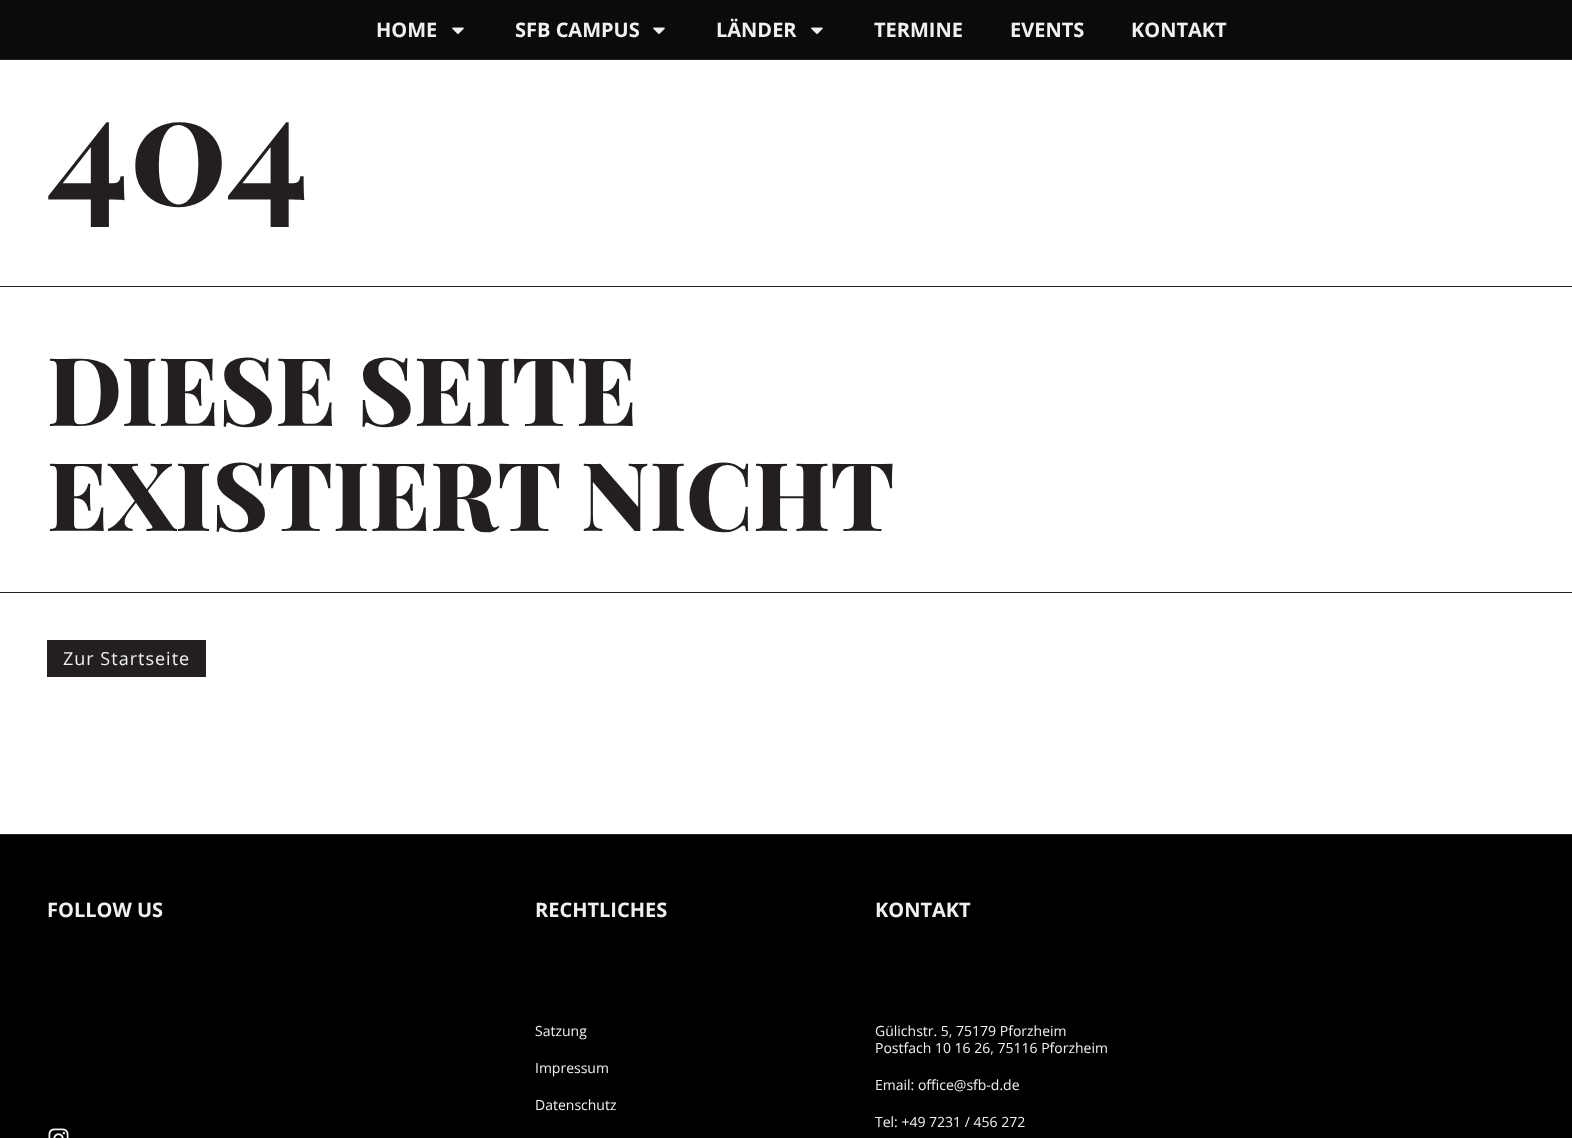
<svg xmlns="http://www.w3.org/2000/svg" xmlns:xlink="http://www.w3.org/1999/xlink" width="1572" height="1138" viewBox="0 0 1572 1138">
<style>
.cls-1{font:bold 20px Open Sans;fill:#f0f0f0}
.cls-2{font:bold 156px Playfair Display;letter-spacing:-1px;fill:#231f20}
.cls-3{font:800 95px Playfair Display;letter-spacing:-0.25px;fill:#231f20}
.cls-4{font:18px Open Sans;letter-spacing:1px;fill:#f0f0f0}
.cls-5{font:14px Open Sans;fill:#f0f0f0}
</style>
<rect width="100%" height="100%" fill="#ffffff"/>
<rect fill="#0b0b0b" x="0" y="0" width="1572" height="59"/>
<rect fill="#231f20" x="0" y="59" width="1572" height="1"/>
<image xlink:href="image0.png" x="452" y="27" width="12" height="7"/>
<image xlink:href="image0.png" x="653" y="27" width="12" height="7"/>
<image xlink:href="image0.png" x="811" y="27" width="12" height="7"/>
<rect fill="#231f20" x="0" y="286" width="1572" height="1"/>
<rect fill="#231f20" x="0" y="592" width="1572" height="1"/>
<rect fill="#231f20" x="47" y="640" width="159" height="37"/>
<rect fill="#000000" x="0" y="835" width="1572" height="303"/>
<rect fill="#231f20" x="0" y="834" width="1572" height="1"/>
<image xlink:href="image1.png" x="48" y="1128" width="21" height="10"/>
<text class="cls-1" x="376" y="37">HOME</text>
<text class="cls-1" x="515" y="37">SFB CAMPUS</text>
<text class="cls-1" x="716" y="37">LÄNDER</text>
<text class="cls-1" x="874" y="37">TERMINE</text>
<text class="cls-1" x="1010" y="37">EVENTS</text>
<text class="cls-1" x="1131" y="37">KONTAKT</text>
<text class="cls-2" x="47" y="205">404</text>
<text class="cls-3"><tspan x="47" y="426">DIESE SEITE</tspan><tspan x="47" y="531">EXISTIERT NICHT</tspan></text>
<text class="cls-4" x="63" y="665">Zur Startseite</text>
<text class="cls-1" x="47" y="917">FOLLOW US</text>
<text class="cls-1" x="535" y="917">RECHTLICHES</text>
<text class="cls-5" x="535" y="1036">Satzung</text>
<text class="cls-5" x="535" y="1073">Impressum</text>
<text class="cls-5" x="535" y="1110">Datenschutz</text>
<text class="cls-1" x="875" y="917">KONTAKT</text>
<text class="cls-5"><tspan x="875" y="1036">Gülichstr. 5, 75179 Pforzheim</tspan><tspan x="875" y="1053">Postfach 10 16 26, 75116 Pforzheim</tspan></text>
<text class="cls-5" x="875" y="1090">Email: office@sfb-d.de</text>
<text class="cls-5" x="875" y="1127">Tel: +49 7231 / 456 272</text>
</svg>
